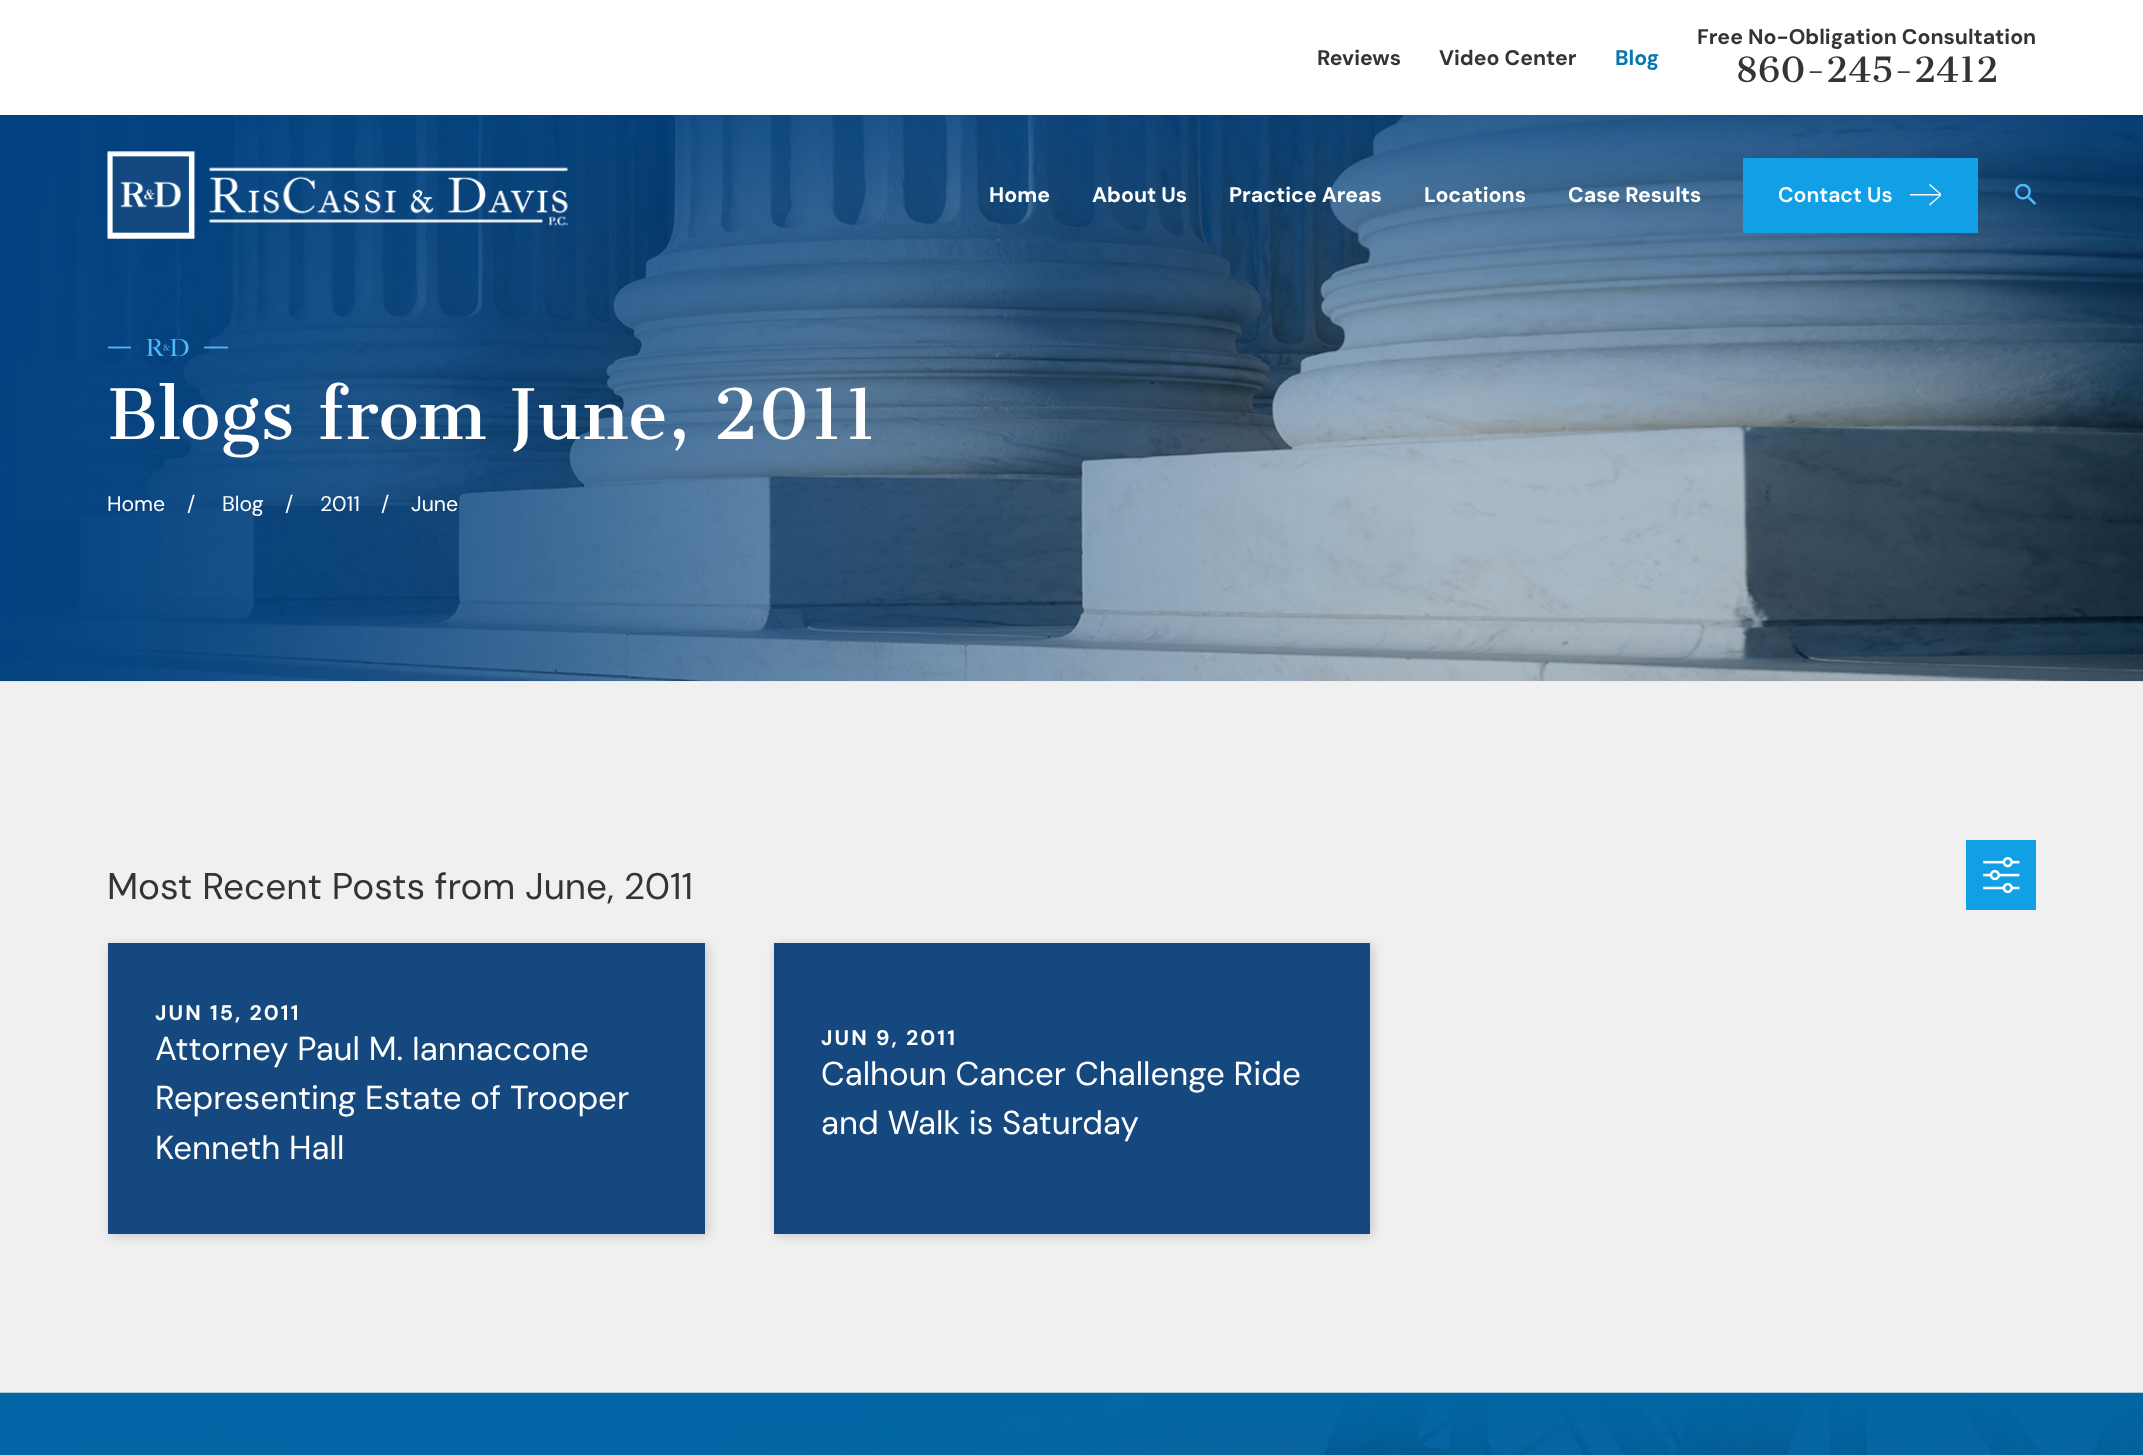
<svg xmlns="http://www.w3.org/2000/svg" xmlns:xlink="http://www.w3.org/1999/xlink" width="2143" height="1455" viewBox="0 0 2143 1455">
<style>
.cls-1{font:bold 21.25px DM Sans;fill:#343434}
.cls-2{font:bold 21.25px DM Sans;fill:#0677ae}
.cls-3{font:34px Cantata One;fill:#343434}
.cls-4{font:bold 21.25px DM Sans;fill:#ffffff}
.cls-5{font:600 21.25px DM Sans;fill:#ffffff}
.cls-6{font:68px Cantata One;fill:#ffffff}
.cls-7{font:21.25px DM Sans;fill:#ffffff}
.cls-8{font:37px DM Sans;fill:#343434}
.cls-9{font:bold 21.25px DM Sans;letter-spacing:2.1px;fill:#ffffff}
.cls-10{font:33.1px DM Sans;fill:#ffffff}
</style>
<defs>
<clipPath id="clip1"><rect x="1910" y="179" width="31" height="32"/></clipPath>
</defs>
<rect width="100%" height="100%" fill="#f0f0f0"/>
<rect fill="#ffffff" x="0" y="0" width="2143" height="115"/>
<image xlink:href="image2.png" x="0" y="115" width="2143" height="567"/>
<image xlink:href="image0.png" x="107" y="151" width="461" height="88"/>
<rect fill="#119fe5" x="1743" y="158" width="235" height="75"/>
<g clip-path="url(#clip1)">
<path fill="#ffffff" d="M1929 204.5L1930 205.5L1942 194.5L1930 184L1929 185L1939.5 194H1910V195.5H1939.5Z"/>
</g>
<image xlink:href="image1.png" x="2015" y="184" width="21" height="21"/>
<image xlink:href="image3.png" x="108" y="339" width="120" height="17"/>
<rect fill="#119fe5" x="1966" y="840" width="70" height="70"/>
<image xlink:href="image4.png" x="1983" y="857" width="37" height="37"/>
<rect fill="#000000" fill-opacity="0.16" filter="blur(5.5px)" x="110" y="945" width="598" height="291"/>
<rect fill="#15487e" x="108" y="943" width="597" height="291"/>
<rect fill="#000000" fill-opacity="0.16" filter="blur(5.5px)" x="776" y="945" width="597" height="291"/>
<rect fill="#15487e" x="774" y="943" width="596" height="291"/>
<image xlink:href="image5.png" x="0" y="1392" width="2143" height="63"/>
<text class="cls-1" x="1317" y="65">Reviews</text>
<text class="cls-1" x="1439" y="65">Video Center</text>
<text class="cls-2" x="1615" y="65">Blog</text>
<text class="cls-1" x="1697" y="44">Free No-Obligation Consultation</text>
<text class="cls-3" x="1735" y="82">860-245-2412</text>
<text class="cls-4" x="989" y="202">Home</text>
<text class="cls-4" x="1092" y="202">About Us</text>
<text class="cls-4" x="1229" y="202">Practice Areas</text>
<text class="cls-4" x="1424" y="202">Locations</text>
<text class="cls-4" x="1568" y="202">Case Results</text>
<text class="cls-5" x="1778" y="202">Contact Us</text>
<text class="cls-6" x="107" y="439">Blogs from June, 2011</text>
<text class="cls-7" x="107" y="511">Home</text>
<text class="cls-7" x="187" y="511">/</text>
<text class="cls-7" x="222" y="511">Blog</text>
<text class="cls-7" x="285" y="511">/</text>
<text class="cls-7" x="320" y="511">2011</text>
<text class="cls-7" x="381" y="511">/</text>
<text class="cls-7" x="411" y="511">June</text>
<text class="cls-8" x="107" y="899">Most Recent Posts from June, 2011</text>
<text class="cls-9" x="155" y="1020">JUN 15, 2011</text>
<text class="cls-10"><tspan x="155" y="1060">Attorney Paul M. Iannaccone</tspan><tspan x="155" y="1109">Representing Estate of Trooper</tspan><tspan x="155" y="1159">Kenneth Hall</tspan></text>
<text class="cls-9" x="821" y="1045">JUN 9, 2011</text>
<text class="cls-10"><tspan x="821" y="1085">Calhoun Cancer Challenge Ride</tspan><tspan x="821" y="1134">and Walk is Saturday</tspan></text>
</svg>
